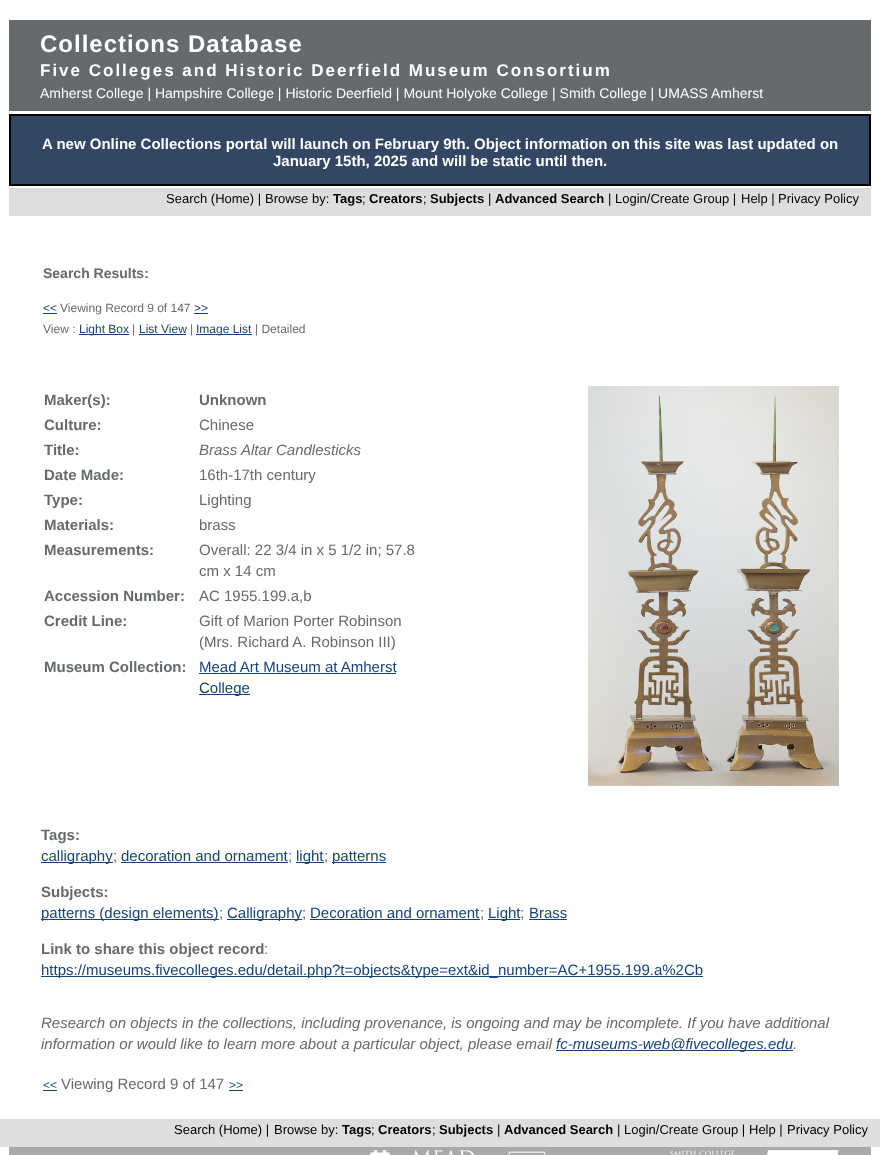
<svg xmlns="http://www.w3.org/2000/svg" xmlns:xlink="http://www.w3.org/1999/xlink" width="880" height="1155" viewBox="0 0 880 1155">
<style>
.cls-1{font:bold 24px Liberation Sans;letter-spacing:1px;fill:#ffffff}
.cls-2{font:bold 17px Liberation Sans;letter-spacing:2px;fill:#ffffff}
.cls-3{font:14px Liberation Sans;fill:#ffffff}
.cls-4{font:bold 15px Liberation Sans;fill:#ffffff}
.cls-5{font:13px Liberation Sans;fill:#000000}
.cls-6{font:bold 13px Liberation Sans;fill:#000000}
.cls-7{font:bold 14px Liberation Sans;fill:#666a6c}
.cls-8{font:12px Liberation Sans;fill:#15447c}
.cls-9{font:12px Liberation Sans;fill:#666a6c}
.cls-10{font:bold 15px Liberation Sans;fill:#666a6c}
.cls-11{font:15px Liberation Sans;fill:#666a6c}
.cls-12{font:italic 15px Liberation Sans;fill:#666a6c}
.cls-13{font:15px Liberation Sans;fill:#15447c}
.cls-14{font:italic 15px Liberation Sans;fill:#15447c}
</style>
<rect width="100%" height="100%" fill="#ffffff"/>
<rect fill="#666a6c" x="9" y="20" width="862" height="91"/>
<rect fill="#334663" stroke="#000000" stroke-width="2" x="10" y="115" width="860" height="70"/>
<rect fill="#dedede" x="9" y="188" width="862" height="28"/>
<rect fill="#15447c" x="43" y="313" width="14" height="1"/>
<rect fill="#15447c" x="194" y="313" width="14" height="1"/>
<rect fill="#15447c" x="79" y="334" width="50" height="1"/>
<rect fill="#15447c" x="139" y="334" width="47" height="1"/>
<rect fill="#15447c" x="196" y="334" width="56" height="1"/>
<rect fill="#15447c" x="199" y="673" width="197" height="1"/>
<rect fill="#15447c" x="199" y="694" width="51" height="1"/>
<image xlink:href="image0.png" x="588" y="386" width="251" height="400"/>
<rect fill="#15447c" x="41" y="862" width="72" height="1"/>
<rect fill="#15447c" x="121" y="862" width="167" height="1"/>
<rect fill="#15447c" x="296" y="862" width="28" height="1"/>
<rect fill="#15447c" x="332" y="862" width="54" height="1"/>
<rect fill="#15447c" x="41" y="919" width="178" height="1"/>
<rect fill="#15447c" x="227" y="919" width="75" height="1"/>
<rect fill="#15447c" x="310" y="919" width="170" height="1"/>
<rect fill="#15447c" x="488" y="919" width="32" height="1"/>
<rect fill="#15447c" x="529" y="919" width="38" height="1"/>
<rect fill="#15447c" x="41" y="976" width="662" height="1"/>
<rect fill="#15447c" x="556" y="1050" width="237" height="1"/>
<rect fill="#15447c" x="43" y="1090" width="14" height="1"/>
<rect fill="#15447c" x="229" y="1090" width="14" height="1"/>
<rect fill="#dedede" x="0" y="1119" width="880" height="28"/>
<rect fill="#a9a9a9" x="9" y="1147" width="862" height="8"/>
<image xlink:href="image1.png" x="369" y="1150" width="22" height="5"/>
<image xlink:href="image2.png" x="414" y="1150" width="61" height="5"/>
<image xlink:href="image3.png" x="508" y="1151" width="38" height="4"/>
<image xlink:href="image4.png" x="670" y="1150" width="65" height="5"/>
<image xlink:href="image5.png" x="766" y="1150" width="73" height="5"/>
<text class="cls-1" x="40" y="52">Collections Database</text>
<text class="cls-2" x="40" y="76">Five Colleges and Historic Deerfield Museum Consortium</text>
<text class="cls-3" x="40" y="98">Amherst College | Hampshire College | Historic Deerfield | Mount Holyoke College | Smith College | UMASS Amherst</text>
<text class="cls-4" x="42" y="149">A new Online Collections portal will launch on February 9th. Object information on this site was last updated on</text>
<text class="cls-4" x="273" y="166">January 15th, 2025 and will be static until then.</text>
<text class="cls-5" x="166" y="203">Search (Home) |</text>
<text class="cls-5" x="265" y="203">Browse by:</text>
<text class="cls-6" x="333" y="203">Tags</text>
<text class="cls-5" x="362" y="203">;</text>
<text class="cls-6" x="369" y="203">Creators</text>
<text class="cls-5" x="423" y="203">;</text>
<text class="cls-6" x="430" y="203">Subjects</text>
<text class="cls-5" x="488" y="203">|</text>
<text class="cls-6" x="495" y="203">Advanced Search</text>
<text class="cls-5" x="608" y="203">|</text>
<text class="cls-5" x="615" y="203">Login/Create Group |</text>
<text class="cls-5" x="741" y="203">Help |</text>
<text class="cls-5" x="778" y="203">Privacy Policy</text>
<text class="cls-7" x="43" y="278">Search Results:</text>
<text class="cls-8" x="43" y="312">&lt;&lt;</text>
<text class="cls-9" x="60" y="312">Viewing Record 9 of 147</text>
<text class="cls-8" x="194" y="312">&gt;&gt;</text>
<text class="cls-9" x="43" y="333">View :</text>
<text class="cls-8" x="79" y="333">Light Box</text>
<text class="cls-9" x="132" y="333">|</text>
<text class="cls-8" x="139" y="333">List View</text>
<text class="cls-9" x="190" y="333">|</text>
<text class="cls-8" x="196" y="333">Image List</text>
<text class="cls-9" x="255" y="333">| Detailed</text>
<text class="cls-10" x="44" y="405">Maker(s):</text>
<text class="cls-10" x="199" y="405">Unknown</text>
<text class="cls-10" x="44" y="430">Culture:</text>
<text class="cls-11" x="199" y="430">Chinese</text>
<text class="cls-10" x="44" y="455">Title:</text>
<text class="cls-12" x="199" y="455">Brass Altar Candlesticks</text>
<text class="cls-10" x="44" y="480">Date Made:</text>
<text class="cls-11" x="199" y="480">16th-17th century</text>
<text class="cls-10" x="44" y="505">Type:</text>
<text class="cls-11" x="199" y="505">Lighting</text>
<text class="cls-10" x="44" y="530">Materials:</text>
<text class="cls-11" x="199" y="530">brass</text>
<text class="cls-10" x="44" y="555">Measurements:</text>
<text class="cls-11"><tspan x="199" y="555">Overall: 22 3/4 in x 5 1/2 in; 57.8</tspan><tspan x="199" y="576">cm x 14 cm</tspan></text>
<text class="cls-10" x="44" y="601">Accession Number:</text>
<text class="cls-11" x="199" y="601">AC 1955.199.a,b</text>
<text class="cls-10" x="44" y="626">Credit Line:</text>
<text class="cls-11"><tspan x="199" y="626">Gift of Marion Porter Robinson</tspan><tspan x="199" y="647">(Mrs. Richard A. Robinson III)</tspan></text>
<text class="cls-10" x="44" y="672">Museum Collection:</text>
<text class="cls-13"><tspan x="199" y="672">Mead Art Museum at Amherst</tspan><tspan x="199" y="693">College</tspan></text>
<text class="cls-10" x="41" y="840">Tags:</text>
<text class="cls-13" x="41" y="861">calligraphy</text>
<text class="cls-11" x="113" y="861">;</text>
<text class="cls-13" x="121" y="861">decoration and ornament</text>
<text class="cls-11" x="288" y="861">;</text>
<text class="cls-13" x="296" y="861">light</text>
<text class="cls-11" x="324" y="861">;</text>
<text class="cls-13" x="332" y="861">patterns</text>
<text class="cls-10" x="41" y="897">Subjects:</text>
<text class="cls-13" x="41" y="918">patterns (design elements)</text>
<text class="cls-11" x="219" y="918">;</text>
<text class="cls-13" x="227" y="918">Calligraphy</text>
<text class="cls-11" x="302" y="918">;</text>
<text class="cls-13" x="310" y="918">Decoration and ornament</text>
<text class="cls-11" x="480" y="918">;</text>
<text class="cls-13" x="488" y="918">Light</text>
<text class="cls-11" x="520" y="918">;</text>
<text class="cls-13" x="529" y="918">Brass</text>
<text class="cls-10" x="41" y="954">Link to share this object record</text>
<text class="cls-11" x="264" y="954">:</text>
<text class="cls-13" x="41" y="975">https://museums.fivecolleges.edu/detail.php?t=objects&amp;type=ext&amp;id_number=AC+1955.199.a%2Cb</text>
<text class="cls-12"><tspan x="41" y="1028">Research on objects in the collections, including provenance, is ongoing and may be incomplete. If you have additional</tspan><tspan x="41" y="1049">information or would like to learn more about a particular object, please email</tspan></text>
<text class="cls-14" x="556" y="1049">fc-museums-web@fivecolleges.edu</text>
<text class="cls-12" x="793" y="1049">.</text>
<text class="cls-8" x="43" y="1089">&lt;&lt;</text>
<text class="cls-11" x="61" y="1089">Viewing Record 9 of 147</text>
<text class="cls-8" x="229" y="1089">&gt;&gt;</text>
<text class="cls-5" x="174" y="1134">Search (Home) |</text>
<text class="cls-5" x="274" y="1134">Browse by:</text>
<text class="cls-6" x="342" y="1134">Tags</text>
<text class="cls-5" x="371" y="1134">;</text>
<text class="cls-6" x="378" y="1134">Creators</text>
<text class="cls-5" x="432" y="1134">;</text>
<text class="cls-6" x="439" y="1134">Subjects</text>
<text class="cls-5" x="497" y="1134">|</text>
<text class="cls-6" x="504" y="1134">Advanced Search</text>
<text class="cls-5" x="617" y="1134">|</text>
<text class="cls-5" x="624" y="1134">Login/Create Group |</text>
<text class="cls-5" x="749" y="1134">Help |</text>
<text class="cls-5" x="787" y="1134">Privacy Policy</text>
</svg>
